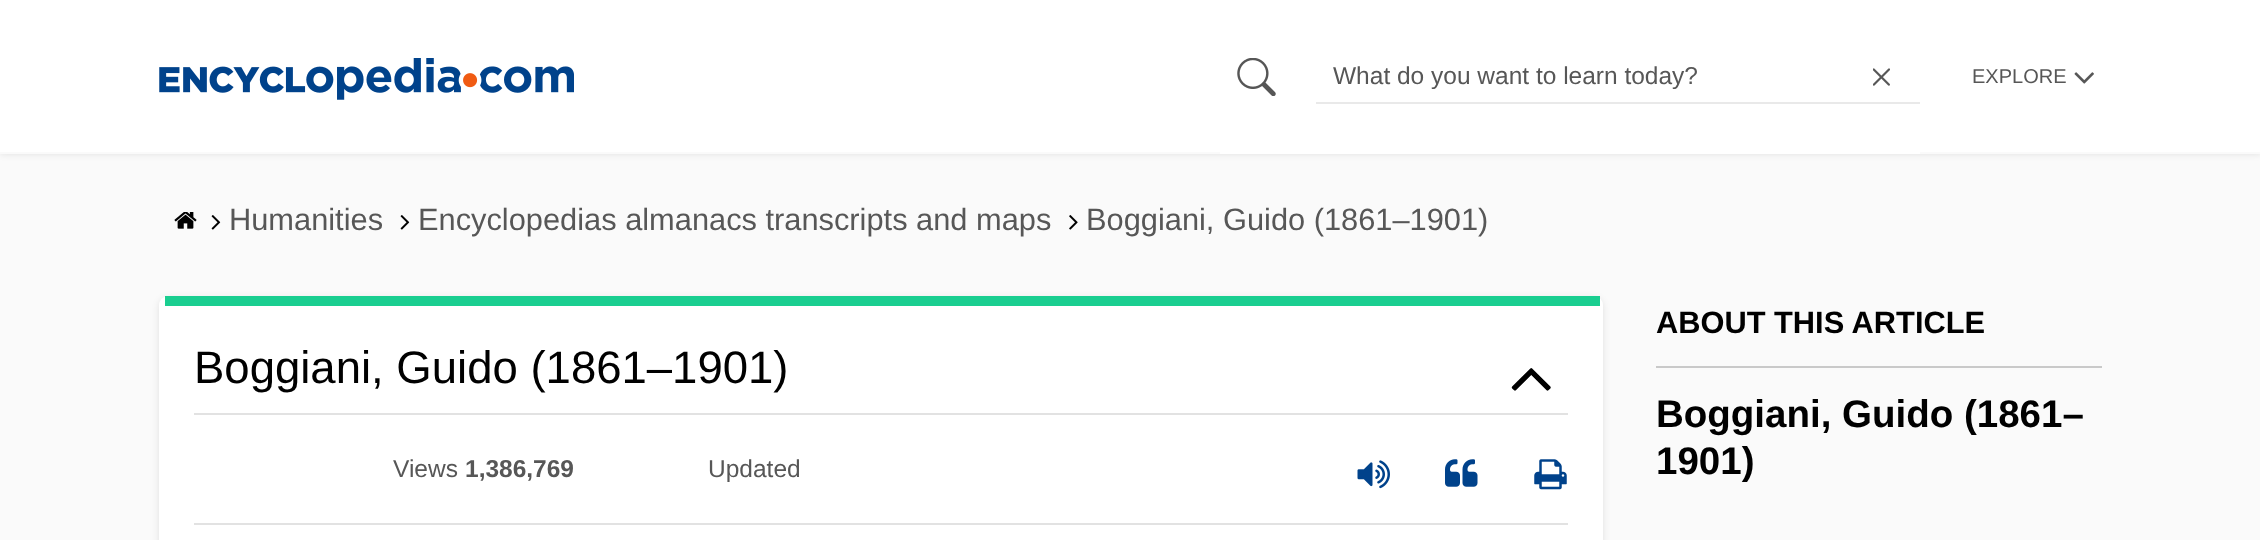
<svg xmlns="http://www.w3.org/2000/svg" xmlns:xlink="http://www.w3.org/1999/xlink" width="2260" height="540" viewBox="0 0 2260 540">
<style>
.cls-1{font:24.5px Liberation Sans;fill:#575757}
.cls-2{font:20px Liberation Sans;fill:#575757}
.cls-3{font:30.8px Liberation Sans;fill:#575757}
.cls-4{font:45.5px Liberation Sans;fill:#000000}
.cls-5{font:bold 24.5px Liberation Sans;fill:#575757}
.cls-6{font:bold 30.8px Liberation Sans;fill:#000000}
.cls-7{font:bold 38.5px Liberation Sans;fill:#000000}
</style>
<rect width="100%" height="100%" fill="#fafafa"/>
<rect fill="#000000" fill-opacity="0.1" filter="blur(3.5px)" x="0" y="0" width="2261" height="154"/>
<rect fill="#ffffff" x="0" y="0" width="2260" height="152"/>
<rect fill="#fafafa" x="0" y="152" width="2260" height="2"/>
<image xlink:href="image0.png" x="159" y="58" width="415" height="42"/>
<rect fill="#ffffff" x="1220" y="152" width="700" height="2"/>
<image xlink:href="image1.png" x="1237" y="58" width="39" height="38"/>
<rect fill="#e9e9e9" x="1316" y="102" width="604" height="2"/>
<image xlink:href="image2.png" x="1873" y="68" width="17" height="18"/>
<image xlink:href="image3.png" x="2074" y="72" width="20" height="12"/>
<image xlink:href="image4.png" x="174" y="212" width="23" height="17"/>
<image xlink:href="image5.png" x="211" y="215" width="10" height="15"/>
<image xlink:href="image5.png" x="400" y="215" width="10" height="15"/>
<image xlink:href="image6.png" x="1069" y="215" width="9" height="15"/>
<rect fill="#000000" fill-opacity="0.1" filter="blur(3.5px)" x="159" y="298" width="1444" height="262" rx="9"/>
<rect fill="#ffffff" x="159" y="296" width="1444" height="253" rx="9"/>
<rect fill="#1ace90" x="165" y="296" width="1435" height="10"/>
<image xlink:href="image7.png" x="1511" y="368" width="40" height="23"/>
<rect fill="#e2e2e2" x="194" y="413" width="1374" height="2"/>
<rect fill="#e2e2e2" x="194" y="523" width="1374" height="2"/>
<image xlink:href="image8.png" x="1357" y="460" width="33" height="29"/>
<image xlink:href="image9.png" x="1445" y="459" width="33" height="28"/>
<image xlink:href="image10.png" x="1534" y="459" width="33" height="31"/>
<rect fill="#c9c9c9" x="1656" y="366" width="446" height="2"/>
<text class="cls-1" x="1333" y="84">What do you want to learn today?</text>
<text class="cls-2" x="1972" y="83">EXPLORE</text>
<text class="cls-3" x="229" y="230">Humanities</text>
<text class="cls-3" x="418" y="230">Encyclopedias almanacs transcripts and maps</text>
<text class="cls-3" x="1086" y="230">Boggiani, Guido (1861–1901)</text>
<text class="cls-4" x="194" y="383">Boggiani, Guido (1861–1901)</text>
<text class="cls-1" x="393" y="477">Views</text>
<text class="cls-5" x="465" y="477">1,386,769</text>
<text class="cls-1" x="708" y="477">Updated</text>
<text class="cls-6" x="1656" y="333">ABOUT THIS ARTICLE</text>
<text class="cls-7"><tspan x="1656" y="427">Boggiani, Guido (1861–</tspan><tspan x="1656" y="474">1901)</tspan></text>
</svg>
